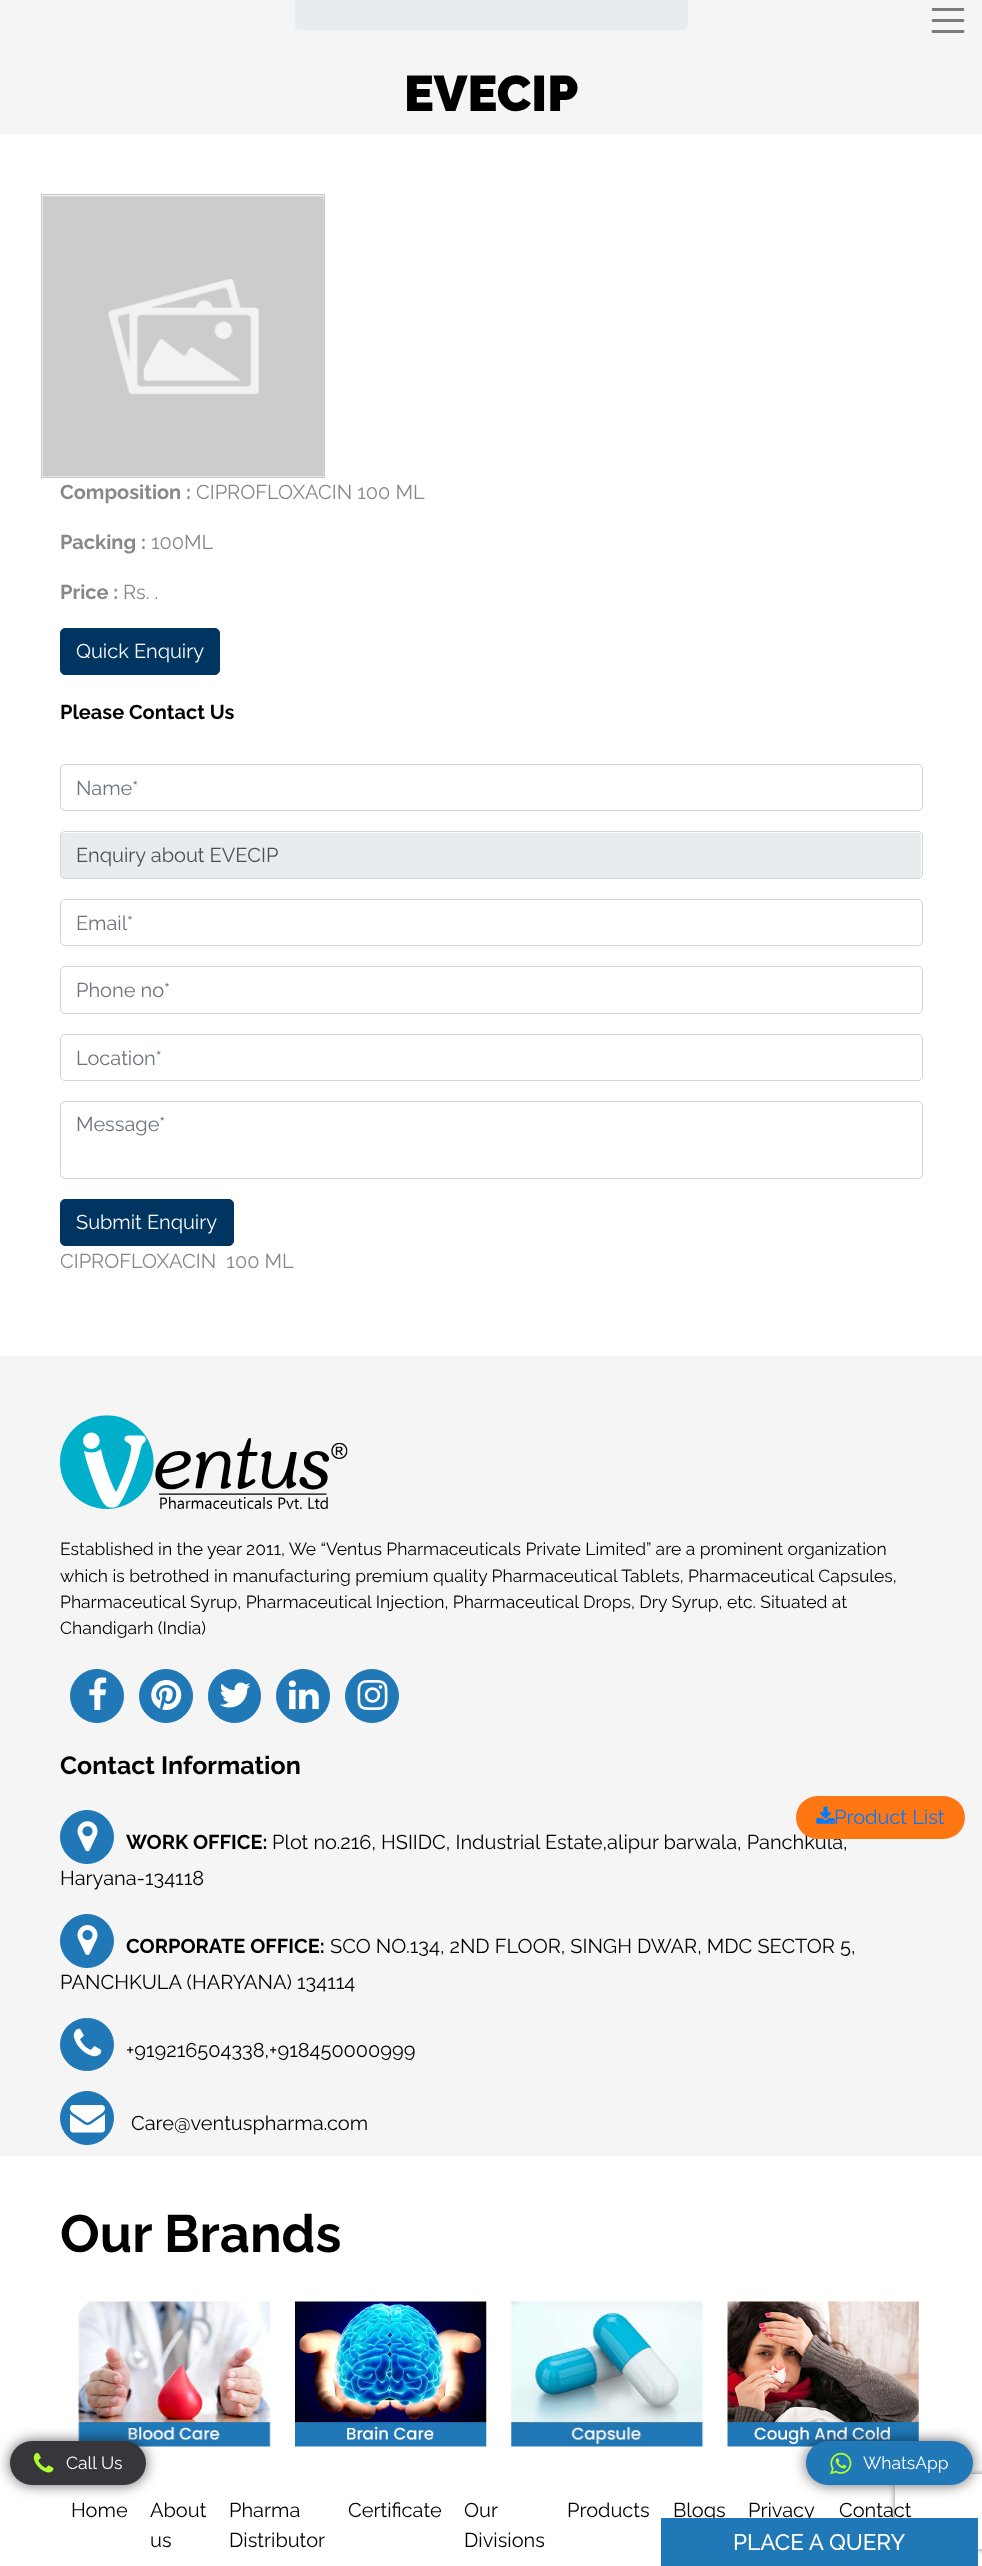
<svg xmlns="http://www.w3.org/2000/svg" xmlns:xlink="http://www.w3.org/1999/xlink" width="982" height="2566" viewBox="0 0 982 2566">
<style>
.cls-1{font:900 50px Raleway;fill:#000000}
.cls-2{font:bold 20px Raleway;fill:#888888}
.cls-3{font:20px Raleway;fill:#888888}
.cls-4{font:20px Raleway;fill:#f9f9f9}
.cls-5{font:bold 20px Raleway;fill:#000000}
.cls-6{font:20px Raleway;fill:#6c757d}
.cls-7{font:20px Raleway;fill:#495057}
.cls-8{font:17.5px Raleway;fill:#000000}
.cls-9{font:bold 25px Raleway;fill:#000000}
.cls-10{font:20px Raleway;fill:#000000}
.cls-11{font:bold 52.5px Raleway;fill:#000000}
.cls-12{font:20px Raleway;fill:#007bff}
.cls-13{font:17.5px Raleway;fill:#ffffff}
.cls-14{font:500 22.5px Raleway;fill:#ffffff}
</style>
<defs>
<clipPath id="clip1"><path d="M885 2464H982V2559H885ZM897.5 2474H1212.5C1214 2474 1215 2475 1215 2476.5V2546.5C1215 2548 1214 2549 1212.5 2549H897.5C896 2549 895 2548 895 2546.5V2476.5C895 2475 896 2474 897.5 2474Z" clip-rule="evenodd"/></clipPath>
</defs>
<rect width="100%" height="100%" fill="#ffffff"/>
<rect fill="#f5f5f5" x="0" y="0" width="982" height="134"/>
<path fill="none" stroke="#7b7b7b" stroke-width="2.8" stroke-linecap="round" d="M933 9.5H963M933 20.5H963M933 31.5H963"/>
<rect fill="#e9ecef" x="295" y="-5" width="393" height="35" rx="5"/>
<rect fill="none" stroke="#ccc7c7" x="41.5" y="194.5" width="283" height="283"/>
<image xlink:href="image0.png" x="42" y="195" width="282" height="282"/>
<rect fill="#003562" stroke="#003562" x="60.5" y="628.5" width="159" height="46" rx="4.5"/>
<rect fill="none" stroke="#ced4da" x="60.5" y="764.5" width="862" height="46" rx="4.5"/>
<rect fill="#e9ecef" x="61" y="833" width="860" height="45" rx="4"/>
<rect fill="none" stroke="#ced4da" x="60.5" y="831.5" width="862" height="47" rx="4.5"/>
<rect fill="none" stroke="#ced4da" x="60.5" y="899.5" width="862" height="46" rx="4.5"/>
<rect fill="none" stroke="#ced4da" x="60.5" y="966.5" width="862" height="47" rx="4.5"/>
<rect fill="none" stroke="#ced4da" x="60.5" y="1034.5" width="862" height="46" rx="4.5"/>
<rect fill="none" stroke="#ced4da" x="60.5" y="1101.5" width="862" height="77" rx="4.5"/>
<rect fill="#003562" stroke="#003562" x="60.5" y="1199.5" width="173" height="46" rx="4.5"/>
<rect fill="#f5f5f5" x="0" y="1356" width="982" height="800"/>
<image xlink:href="image1.png" x="60" y="1415" width="288" height="94"/>
<circle fill="#2178b7" stroke="#2178b7" cx="97" cy="1696" r="26.5"/>
<image xlink:href="image2.png" x="89" y="1677" width="18" height="33"/>
<circle fill="#2178b7" stroke="#2178b7" cx="166" cy="1696" r="26.5"/>
<image xlink:href="image3.png" x="151" y="1680" width="31" height="30"/>
<rect fill="#2178b7" stroke="#2178b7" x="208.5" y="1669.5" width="52" height="53" rx="26"/>
<image xlink:href="image4.png" x="219" y="1682" width="32" height="26"/>
<circle fill="#2178b7" stroke="#2178b7" cx="303" cy="1696" r="26.5"/>
<image xlink:href="image5.png" x="288" y="1680" width="31" height="30"/>
<circle fill="#2178b7" stroke="#2178b7" cx="372" cy="1696" r="26.5"/>
<image xlink:href="image6.png" x="357" y="1680" width="31" height="30"/>
<circle fill="#2178b7" stroke="#2178b7" cx="87" cy="1837" r="26.5"/>
<image xlink:href="image7.png" x="77" y="1821" width="21" height="31"/>
<circle fill="#2178b7" stroke="#2178b7" cx="87" cy="1941" r="26.5"/>
<image xlink:href="image8.png" x="77" y="1925" width="21" height="30"/>
<rect fill="#2178b7" stroke="#2178b7" x="60.5" y="2018.5" width="53" height="52" rx="26"/>
<image xlink:href="image9.png" x="73" y="2028" width="29" height="29"/>
<circle fill="#2178b7" stroke="#2178b7" cx="87" cy="2118" r="26.5"/>
<image xlink:href="image10.png" x="70" y="2105" width="35" height="28"/>
<image xlink:href="image11.png" x="78" y="2301" width="193" height="146"/>
<image xlink:href="image12.png" x="295" y="2301" width="192" height="146"/>
<image xlink:href="image13.png" x="511" y="2301" width="193" height="146"/>
<image xlink:href="image14.png" x="727" y="2301" width="192" height="146"/>
<rect fill="#000000" fill-opacity="0.6" filter="blur(7px)" x="10" y="2441" width="136" height="44" rx="22"/>
<rect fill="#37373b" x="10" y="2441" width="136" height="44" rx="22"/>
<image xlink:href="image16.png" x="33" y="2452" width="21" height="21"/>
<rect fill="#000000" fill-opacity="0.6" filter="blur(7px)" x="806" y="2441" width="167" height="44" rx="22"/>
<g clip-path="url(#clip1)">
<rect fill="#808080" filter="blur(3px)" x="895" y="2474" width="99" height="75" rx="2.5"/>
</g>
<rect fill="#2178b7" x="806" y="2441" width="167" height="44" rx="22"/>
<image xlink:href="image17.png" x="830" y="2452" width="22" height="23"/>
<text class="cls-1" x="404" y="111">EVECIP</text>
<text class="cls-2" x="60" y="499">Composition :</text>
<text class="cls-3" x="196" y="499">CIPROFLOXACIN 100 ML</text>
<text class="cls-2" x="60" y="549">Packing :</text>
<text class="cls-3" x="151" y="549">100ML</text>
<text class="cls-2" x="60" y="599">Price :</text>
<text class="cls-3" x="123" y="599">Rs. .</text>
<text class="cls-4" x="76" y="658">Quick Enquiry</text>
<text class="cls-5" x="60" y="719">Please Contact Us</text>
<text class="cls-6" x="76" y="795">Name*</text>
<text class="cls-7" x="76" y="862">Enquiry about EVECIP</text>
<text class="cls-6" x="76" y="930">Email*</text>
<text class="cls-6" x="76" y="997">Phone no*</text>
<text class="cls-6" x="76" y="1065">Location*</text>
<text class="cls-6" x="76" y="1131">Message*</text>
<text class="cls-4" x="76" y="1229">Submit Enquiry</text>
<text class="cls-3" xml:space="preserve" x="60" y="1268">CIPROFLOXACIN  100 ML</text>
<text class="cls-8"><tspan x="60" y="1555">Established in the year 2011, We “Ventus Pharmaceuticals Private Limited” are a prominent organization</tspan><tspan x="60" y="1582">which is betrothed in manufacturing premium quality Pharmaceutical Tablets, Pharmaceutical Capsules,</tspan><tspan x="60" y="1608">Pharmaceutical Syrup, Pharmaceutical Injection, Pharmaceutical Drops, Dry Syrup, etc. Situated at</tspan><tspan x="60" y="1634">Chandigarh (India)</tspan></text>
<text class="cls-9" x="60" y="1774">Contact Information</text>
<text class="cls-5" x="126" y="1849">WORK OFFICE:</text>
<text class="cls-10" x="272" y="1849">Plot no.216, HSIIDC, Industrial Estate,alipur barwala, Panchkula,</text>
<text class="cls-10" x="60" y="1885">Haryana-134118</text>
<text class="cls-5" x="126" y="1953">CORPORATE OFFICE:</text>
<text class="cls-10" x="330" y="1953">SCO NO.134, 2ND FLOOR, SINGH DWAR, MDC SECTOR 5,</text>
<text class="cls-10" x="60" y="1989">PANCHKULA (HARYANA) 134114</text>
<text class="cls-10" x="126" y="2057">+919216504338,+918450000999</text>
<text class="cls-10" x="131" y="2130">Care@ventuspharma.com</text>
<text class="cls-11" x="60" y="2252">Our Brands</text>
<text class="cls-10" x="71" y="2517">Home</text>
<text class="cls-10"><tspan x="150" y="2517">About</tspan><tspan x="150" y="2547">us</tspan></text>
<text class="cls-10"><tspan x="229" y="2517">Pharma</tspan><tspan x="229" y="2547">Distributor</tspan></text>
<text class="cls-10" x="348" y="2517">Certificate</text>
<text class="cls-10"><tspan x="464" y="2517">Our</tspan><tspan x="464" y="2547">Divisions</tspan></text>
<text class="cls-10" x="567" y="2517">Products</text>
<text class="cls-10" x="673" y="2517">Blogs</text>
<text class="cls-10" x="748" y="2517">Privacy</text>
<text class="cls-10" x="839" y="2517">Contact</text>
<rect fill="#ff7713" x="796" y="1796" width="169" height="43" rx="21.5"/>
<image xlink:href="image15.png" x="816" y="1806" width="19" height="18"/>
<text class="cls-12" x="834" y="1824">Product List</text>
<text class="cls-13" x="66" y="2469">Call Us</text>
<text class="cls-13" x="863" y="2469">WhatsApp</text>
<rect fill="#2178b7" x="661" y="2518" width="317" height="48"/>
<text class="cls-14" x="733" y="2550">PLACE A QUERY</text>
</svg>
